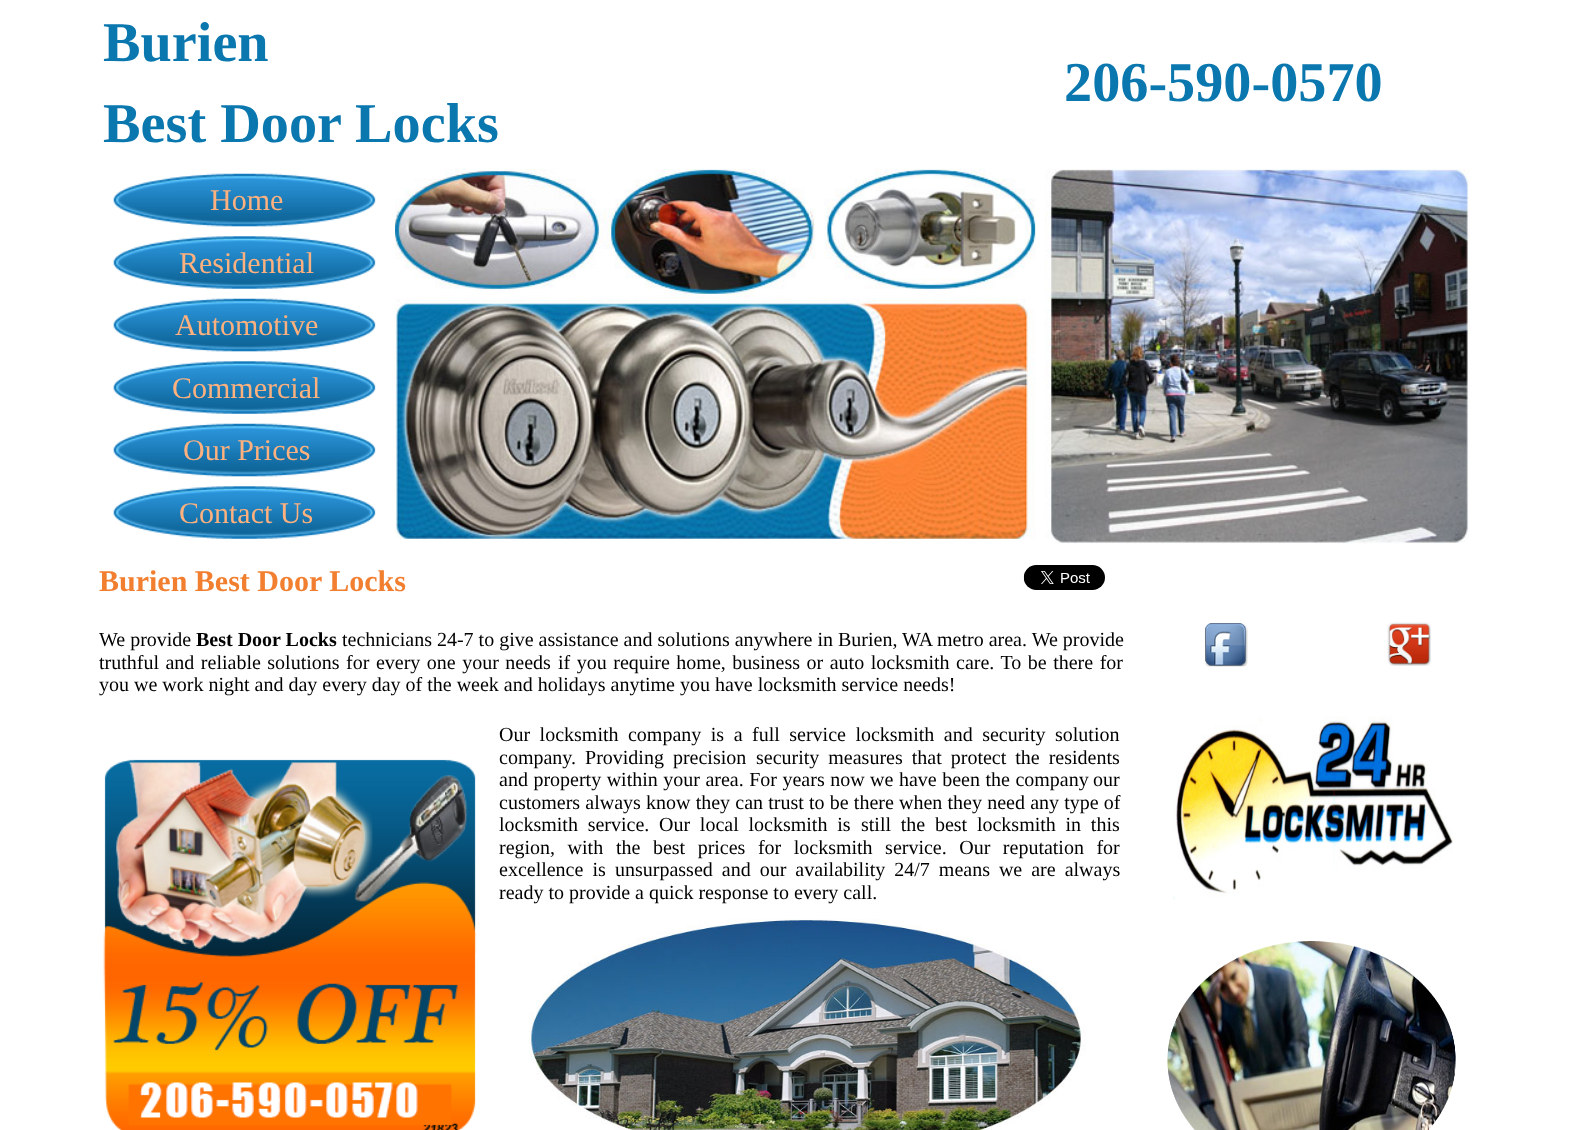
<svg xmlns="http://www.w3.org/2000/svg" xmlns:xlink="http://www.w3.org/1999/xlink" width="1572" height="1130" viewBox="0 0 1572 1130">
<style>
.cls-1{font:bold 56.25px Liberation Serif;fill:#0a77af}
.cls-2{font:30px Liberation Serif;fill:#feb17e}
.cls-3{font:bold 30px Liberation Serif;fill:#f27f2f}
.cls-4{font:20px Liberation Serif;fill:#000000}
.cls-5{font:bold 20px Liberation Serif;fill:#000000}
</style>
<rect width="100%" height="100%" fill="#ffffff"/>
<image xlink:href="image0.png" x="113" y="173" width="263" height="54"/>
<image xlink:href="image1.png" x="113" y="236" width="263" height="53"/>
<image xlink:href="image2.png" x="113" y="298" width="263" height="54"/>
<image xlink:href="image1.png" x="113" y="361" width="263" height="53"/>
<image xlink:href="image0.png" x="113" y="423" width="263" height="54"/>
<image xlink:href="image1.png" x="113" y="486" width="263" height="53"/>
<image xlink:href="image3.png" x="395" y="168" width="1075" height="376"/>
<image xlink:href="image4.png" x="1023" y="565" width="82" height="25"/>
<image xlink:href="image5.png" x="103" y="759" width="374" height="371"/>
<image xlink:href="image6.png" x="529" y="919" width="557" height="211"/>
<image xlink:href="image7.png" x="1204" y="623" width="44" height="44"/>
<image xlink:href="image8.png" x="1387" y="622" width="44" height="44"/>
<image xlink:href="image9.png" x="1173" y="716" width="280" height="184"/>
<image xlink:href="image10.png" x="1167" y="941" width="289" height="189"/>
<text class="cls-1" x="103" y="61">Burien</text>
<text class="cls-1" x="1064" y="101">206-590-0570</text>
<text class="cls-1" x="103" y="142">Best Door Locks</text>
<text class="cls-2" x="210" y="210">Home</text>
<text class="cls-2" x="179" y="273">Residential</text>
<text class="cls-2" x="175" y="335">Automotive</text>
<text class="cls-2" x="172" y="398">Commercial</text>
<text class="cls-2" x="183" y="460">Our Prices</text>
<text class="cls-2" x="179" y="523">Contact Us</text>
<text class="cls-3" x="99" y="591">Burien Best Door Locks</text>
<text class="cls-4" x="99" y="646">We provide</text>
<text class="cls-5" x="196" y="646">Best Door Locks</text>
<text class="cls-4" x="342" y="646">technicians 24-7 to give assistance and solutions anywhere in Burien, WA metro area. We provide</text>
<text class="cls-4" x="99" y="669" word-spacing="1.5">truthful and reliable solutions for every one your needs</text>
<text class="cls-4" x="558" y="669" word-spacing="1.5">if you require home, business or auto locksmith care. To be there for</text>
<text class="cls-4" x="99" y="691">you we work night and day every day of the week and holidays anytime you have locksmith service needs!</text>
<text class="cls-4" x="499" y="741" word-spacing="4.5">Our locksmith company is a</text>
<text class="cls-4" x="752" y="741" word-spacing="4.5">full service locksmith and security solution</text>
<text class="cls-4" x="499" y="764" word-spacing="4">company. Providing precision</text>
<text class="cls-4" x="756" y="764" word-spacing="4">security measures that protect the residents</text>
<text class="cls-4" x="499" y="786" word-spacing="0.5">and property within your area. For years now we have been the company</text>
<text class="cls-4" x="1093" y="786">our</text>
<text class="cls-4"><tspan x="499" y="809" word-spacing="0.2">customers always know they can trust to be there when they need any type of</tspan><tspan x="499" y="831" word-spacing="4.75">locksmith service. Our local locksmith is</tspan></text>
<text class="cls-4" x="861" y="831" word-spacing="4.75">still the best locksmith in this</text>
<text class="cls-4" x="499" y="854" word-spacing="7.5">region, with</text>
<text class="cls-4" x="616" y="854" word-spacing="7.5">the best prices for locksmith service. Our reputation for</text>
<text class="cls-4" x="499" y="876" word-spacing="4">excellence is</text>
<text class="cls-4" x="615" y="876" word-spacing="4">unsurpassed and our availability 24/7 means we are always</text>
<text class="cls-4" x="499" y="899">ready to provide a quick response to every call.</text>
</svg>
